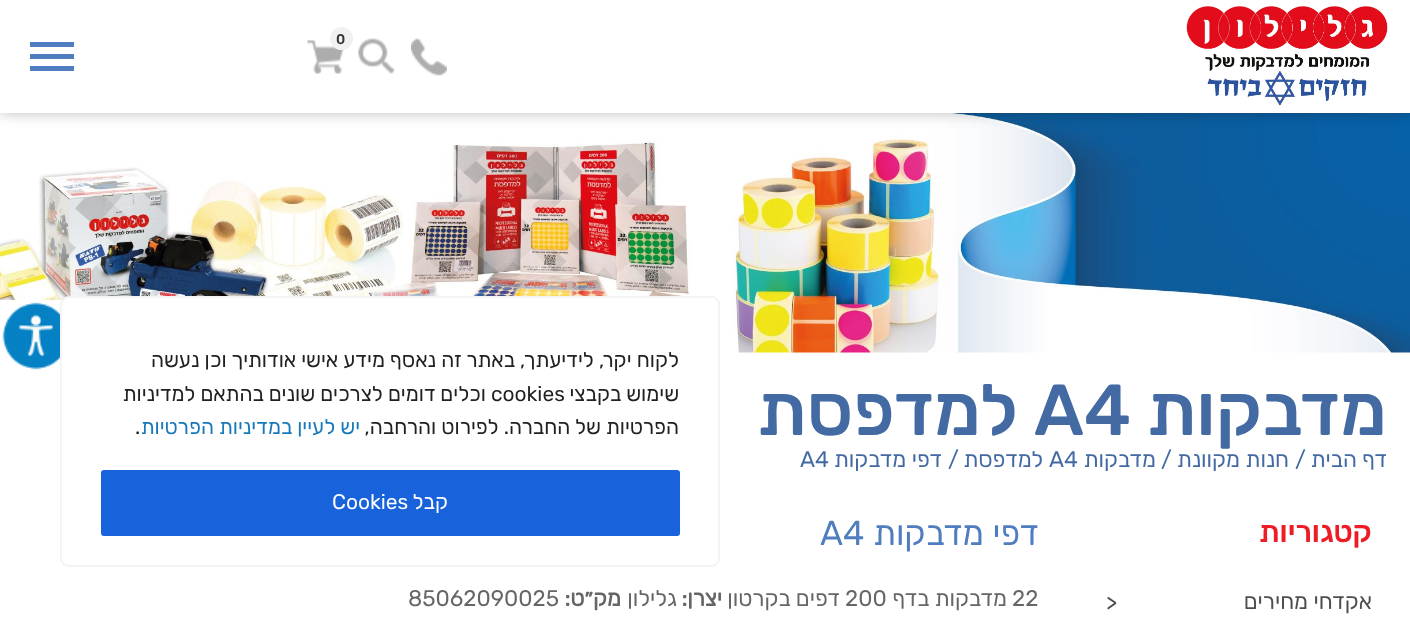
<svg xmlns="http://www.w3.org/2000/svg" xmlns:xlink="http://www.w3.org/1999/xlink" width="1410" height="627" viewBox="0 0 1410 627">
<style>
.cls-1{font:500 14px Rubik;fill:#333333}
.cls-2{font:500 72px Rubik;direction:rtl;fill:#446aa3}
.cls-3{font:500 72px Rubik;fill:#446aa3}
.cls-4{font:22.5px Rubik;direction:rtl;fill:#446aa3}
.cls-5{font:22.5px Rubik;fill:#446aa3}
.cls-6{font:500 30px Rubik;direction:rtl;fill:#ee1c25}
.cls-7{font:22.5px Rubik;direction:rtl;fill:#4e4e4e}
.cls-8{font:22.5px Rubik;fill:#4e4e4e}
.cls-9{font:34.5px Rubik;direction:rtl;fill:#507dc0}
.cls-10{font:34.5px Rubik;fill:#507dc0}
.cls-11{font:22.5px Rubik;fill:#666666}
.cls-12{font:22.5px Rubik;direction:rtl;fill:#666666}
.cls-13{font:bold 22.5px Rubik;direction:rtl;fill:#666666}
.cls-14{font:21px Rubik;direction:rtl;fill:#212121}
.cls-15{font:21px Rubik;fill:#212121}
.cls-16{font:21px Rubik;direction:rtl;fill:#1779ba}
.cls-17{font:21px Rubik;direction:rtl;fill:#ffffff}
.cls-18{font:21px Rubik;fill:#ffffff}
</style>
<defs>
<clipPath id="clip1"><rect x="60" y="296" width="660" height="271" rx="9"/></clipPath>
</defs>
<rect width="100%" height="100%" fill="#ffffff"/>
<image xlink:href="image4.png" x="0" y="113" width="1410" height="240"/>
<rect fill="#000000" fill-opacity="0.26" filter="blur(7px)" x="0" y="0" width="1410" height="113"/>
<rect fill="#ffffff" x="0" y="0" width="1410" height="113"/>
<image xlink:href="image0.png" x="1186" y="6" width="202" height="100"/>
<image xlink:href="image1.png" x="411" y="38" width="36" height="38"/>
<image xlink:href="image2.png" x="358" y="38" width="37" height="36"/>
<image xlink:href="image3.png" x="307" y="40" width="37" height="34"/>
<circle fill="#f1f1f1" cx="341.5" cy="38.5" r="11.5"/>
<rect fill="#507dc0" x="30" y="42" width="44" height="5"/>
<rect fill="#507dc0" x="30" y="54" width="44" height="5"/>
<rect fill="#507dc0" x="30" y="66" width="44" height="5"/>
<rect fill="#ffffff" x="0" y="300" width="62" height="34"/>
<image xlink:href="image5.png" x="2" y="302" width="58" height="68"/>
<g clip-path="url(#clip1)">
<rect fill="#acabab" fill-opacity="0.3" filter="blur(7.5px)" x="60" y="294" width="660" height="272" rx="9"/>
</g>
<rect fill="#ffffff" stroke="#f4f4f4" stroke-width="2" x="61" y="297" width="658" height="269" rx="8"/>
<rect fill="#1863dc" stroke="#1863dc" stroke-width="3" x="102.5" y="471.5" width="576" height="63" rx="1.5"/>
<text class="cls-1" x="336" y="44">0</text>
<text class="cls-2" x="1387" y="435">מדבקות</text>
<text class="cls-3" x="1034" y="435">A4</text>
<text class="cls-2" x="1018" y="435">למדפסת</text>
<text class="cls-4" x="1387" y="467">דף הבית</text>
<text class="cls-5" x="1295" y="467">/</text>
<text class="cls-4" x="1289" y="467">חנות מקוונת</text>
<text class="cls-5" x="1161" y="467">/</text>
<text class="cls-4" x="1156" y="467">מדבקות</text>
<text class="cls-5" x="1049" y="467">A4</text>
<text class="cls-4" x="1043" y="467">למדפסת</text>
<text class="cls-5" x="948" y="467">/</text>
<text class="cls-4" x="942" y="467">דפי מדבקות</text>
<text class="cls-5" x="800" y="467">A4</text>
<rect fill="#ffffff" x="856" y="471" width="360" height="1"/>
<text class="cls-6" x="1372" y="542">קטגוריות</text>
<text class="cls-7" x="1372" y="609">אקדחי מחירים</text>
<text class="cls-8" x="1106" y="611">&gt;</text>
<text class="cls-9" x="1039" y="545">דפי מדבקות</text>
<text class="cls-10" x="820" y="545">A4</text>
<text class="cls-11" x="1012" y="606">22</text>
<text class="cls-12" x="1007" y="606">מדבקות בדף</text>
<text class="cls-11" x="845" y="606">200</text>
<text class="cls-12" x="840" y="606">דפים בקרטון</text>
<text class="cls-13" x="722" y="606">יצרן:</text>
<text class="cls-12" x="677" y="606">גלילון</text>
<text class="cls-13" x="621" y="606">מק״ט:</text>
<text class="cls-11" x="408" y="606">85062090025</text>
<text class="cls-14"><tspan x="679" y="367">לקוח יקר, לידיעתך, באתר זה נאסף מידע אישי אודותיך וכן נעשה</tspan><tspan x="679" y="401">שימוש בקבצי</tspan></text>
<text class="cls-15" x="491" y="401">cookies</text>
<text class="cls-14" x="486" y="401">וכלים דומים לצרכים שונים בהתאם למדיניות</text>
<text class="cls-14" x="679" y="434">הפרטיות של החברה. לפירוט והרחבה,</text>
<text class="cls-16" x="360" y="434">יש לעיין במדיניות הפרטיות</text>
<text class="cls-15" x="135" y="434">.</text>
<text class="cls-17" x="448" y="509">קבל</text>
<text class="cls-18" x="332" y="509">Cookies</text>
</svg>
